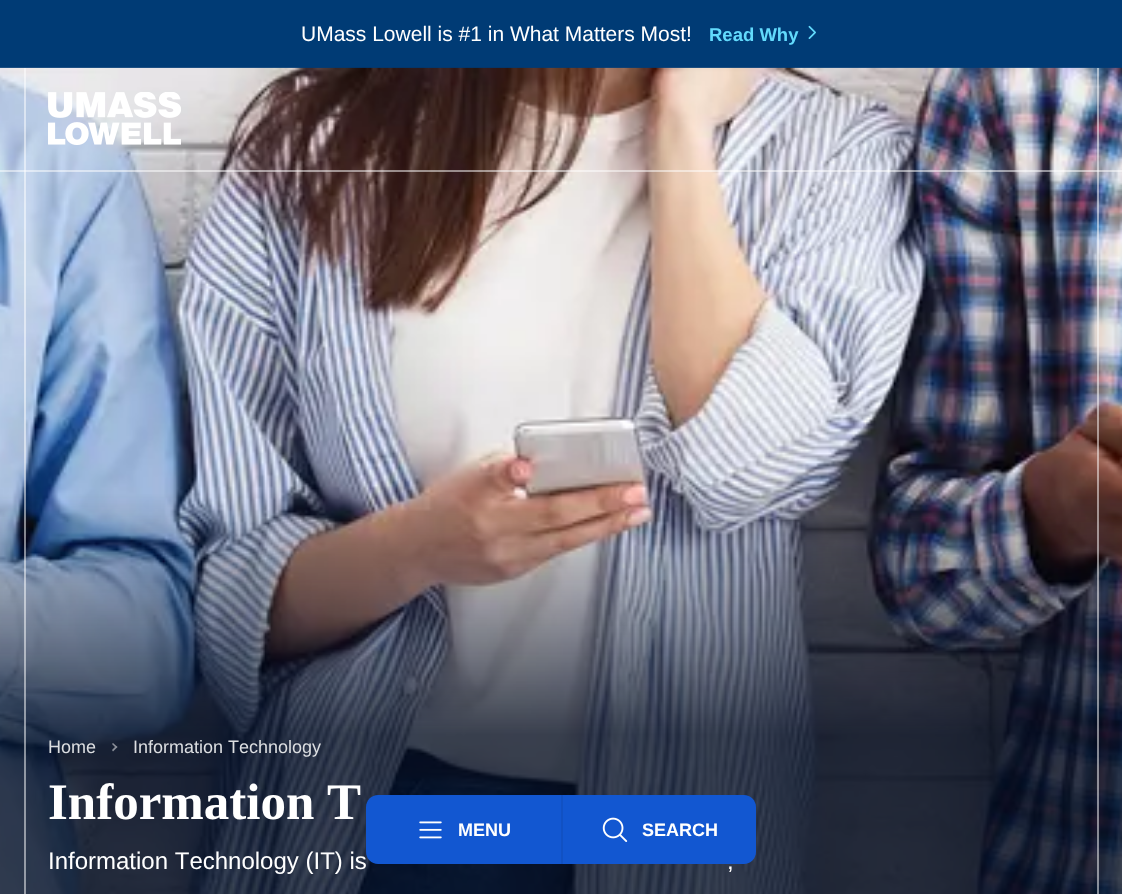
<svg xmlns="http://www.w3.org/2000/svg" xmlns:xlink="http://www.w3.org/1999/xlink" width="1122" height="894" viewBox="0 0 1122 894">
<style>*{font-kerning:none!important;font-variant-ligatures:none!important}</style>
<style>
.cls-1{font:21px Liberation Sans;fill:#ffffff}
.cls-2{font:bold 18.5px Liberation Sans;fill:#62dafc}
.cls-3{font:18px Liberation Sans;fill:#dcdee1}
.cls-4{font:bold 51px Liberation Serif;fill:#ffffff}
.cls-5{font:24px Liberation Sans;fill:#ffffff}
.cls-6{font:bold 18px Liberation Sans;fill:#ffffff}
</style>
<rect width="100%" height="100%" fill="#003b75"/>
<image xlink:href="image0.png" x="808" y="25" width="8" height="14"/>
<image xlink:href="image2.png" x="0" y="67" width="1122" height="827"/>
<image xlink:href="image1.png" x="48" y="92" width="133" height="53"/>
<rect fill="#ffffff" fill-opacity="0.5" x="0" y="170" width="1122" height="2"/>
<rect fill="#ffffff" fill-opacity="0.5" x="1097" y="68" width="2" height="826"/>
<rect fill="#ffffff" fill-opacity="0.5" x="24" y="68" width="2" height="826"/>
<path fill="#8b8f99" d="M112 744L113 743L117.5 747L116 748Z"/>
<path fill="#8b8f99" d="M112 750L116 746L117.5 747L113 751.5Z"/>
<path fill="#1257d1" d="M378 795H561V864H378C371.5 864 366 858.5 366 852V807C366 800.5 371.5 795 378 795Z"/>
<image xlink:href="image3.png" x="419" y="821" width="23" height="18"/>
<path fill="#1257d1" d="M561 795H744C750.5 795 756 800.5 756 807V852C756 858.5 750.5 864 744 864H561Z"/>
<rect fill="#1151c3" x="561" y="795" width="2" height="69"/>
<image xlink:href="image4.png" x="602" y="817" width="26" height="25"/>
<text class="cls-1" x="301" y="41">UMass Lowell is #1 in What Matters Most!</text>
<text class="cls-2" x="709" y="41">Read Why</text>
<text class="cls-3" x="48" y="753">Home</text>
<text class="cls-3" x="133" y="753">Information Technology</text>
<text class="cls-4" x="48" y="819">Information T</text>
<text class="cls-5" x="48" y="869">Information Technology (IT) is</text>
<text class="cls-5" x="727" y="869">,</text>
<text class="cls-6" x="458" y="836">MENU</text>
<text class="cls-6" x="642" y="836">SEARCH</text>
</svg>
